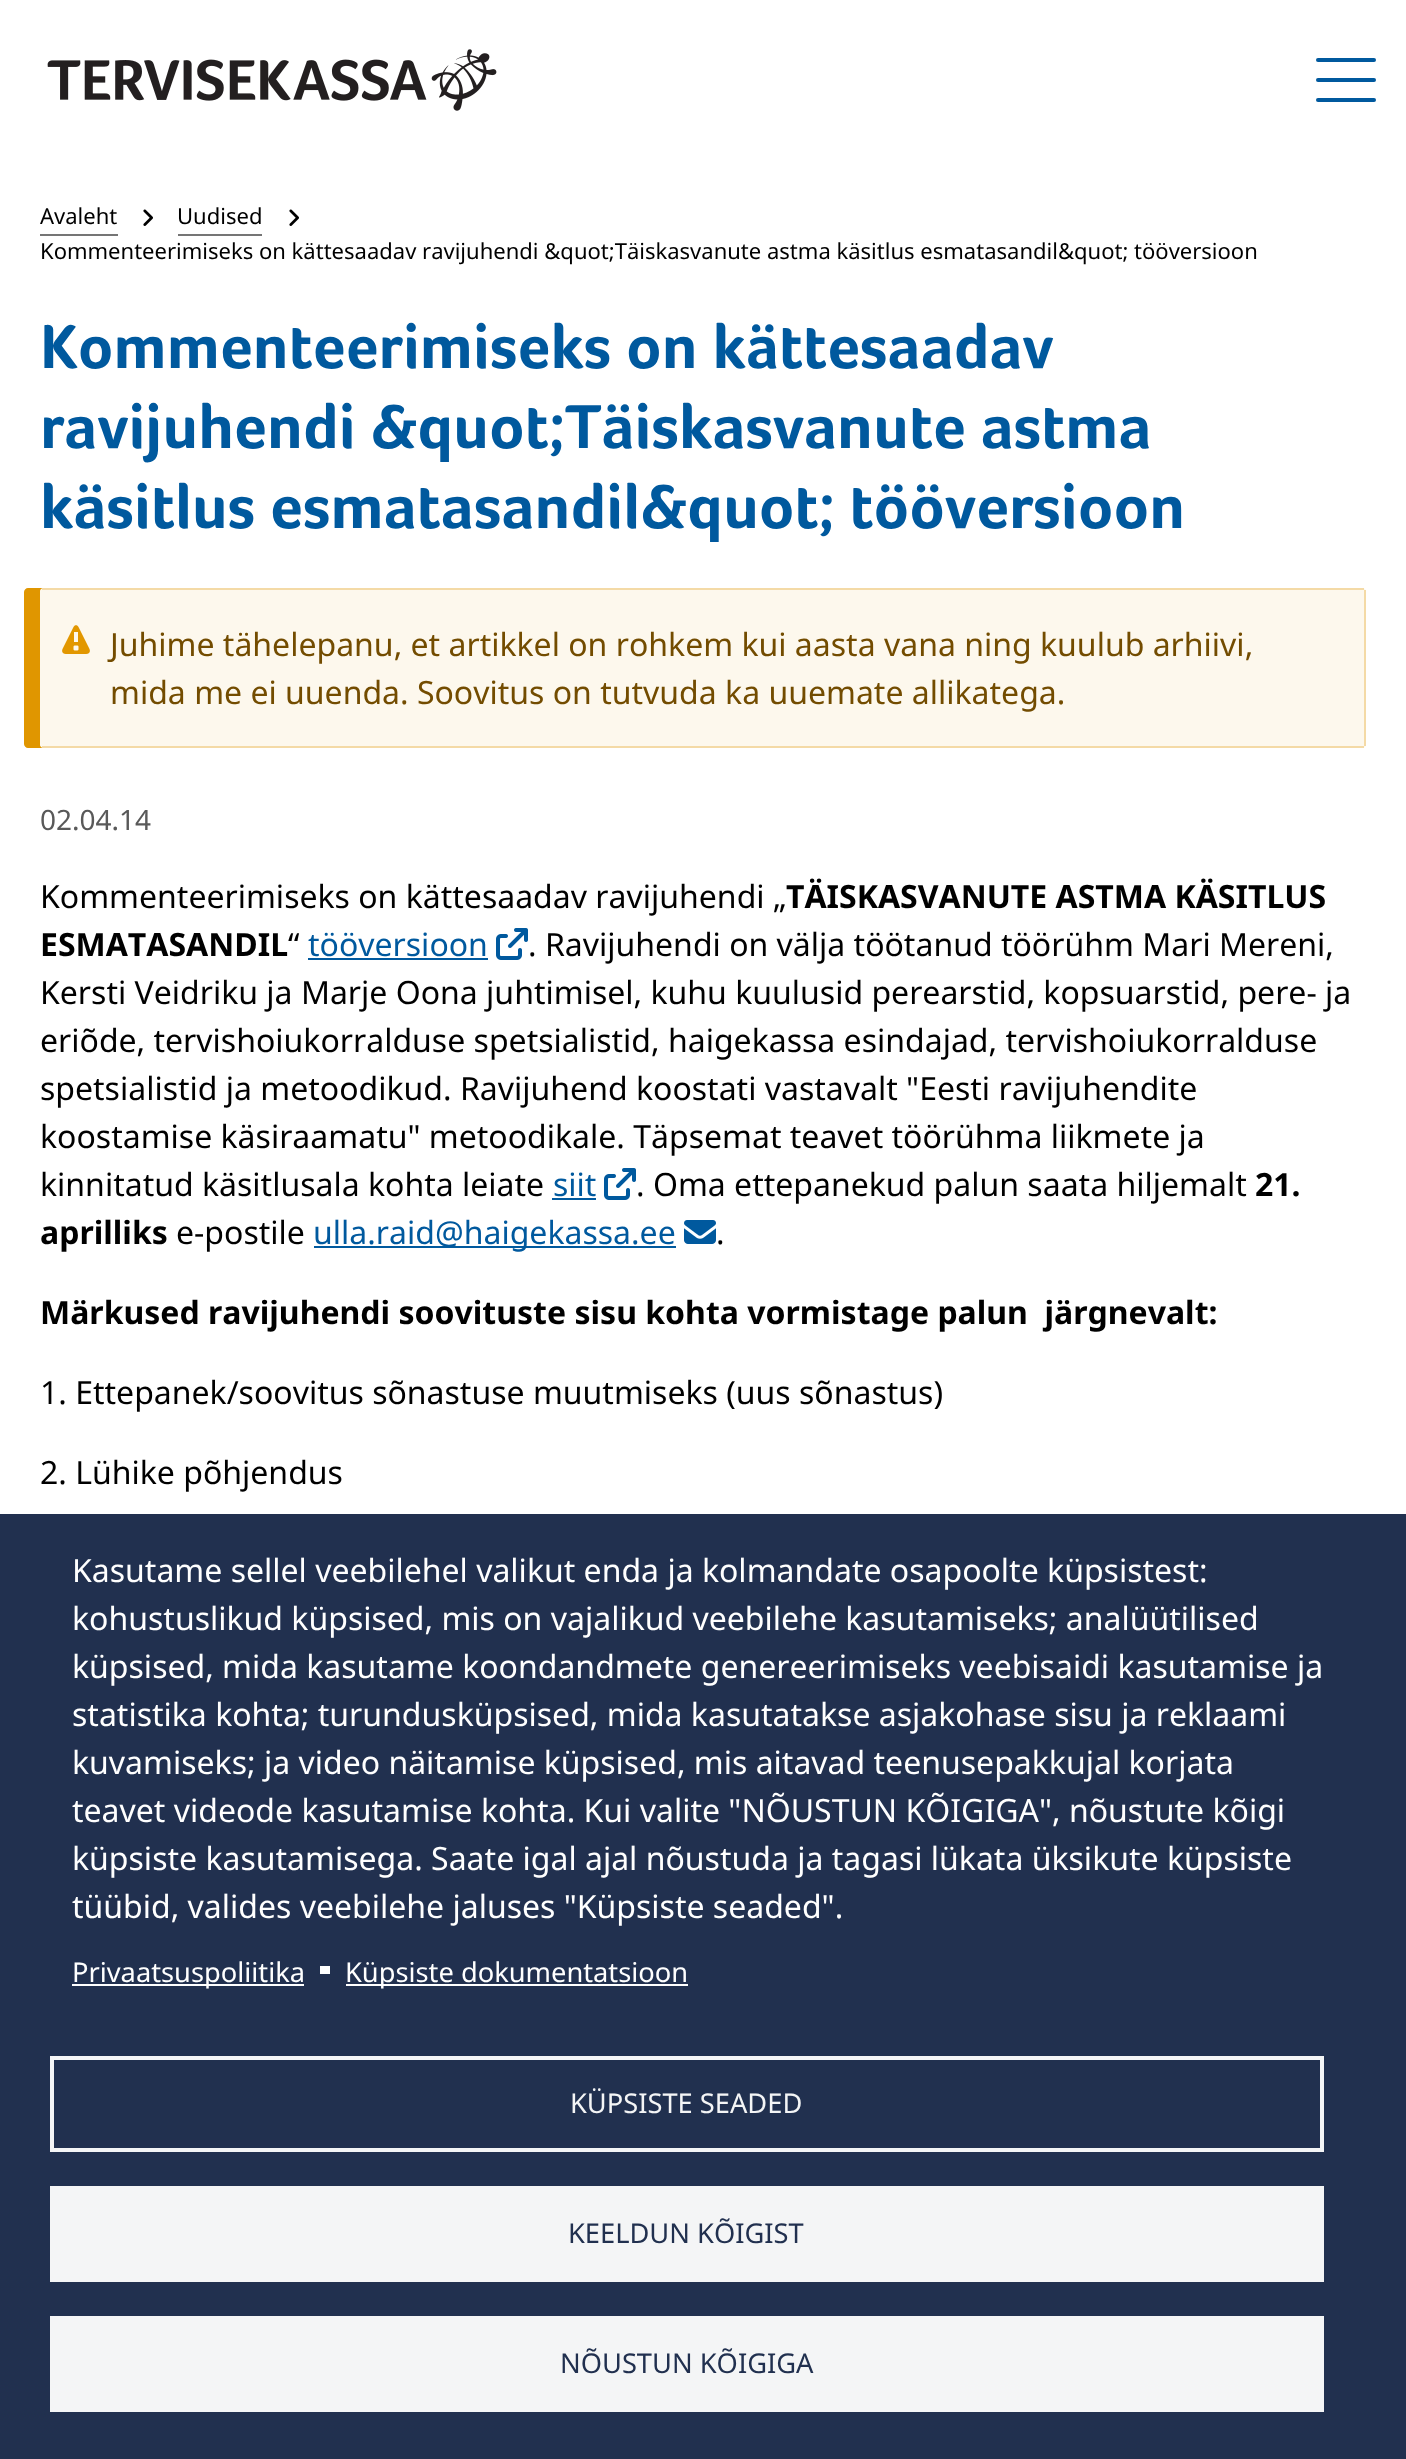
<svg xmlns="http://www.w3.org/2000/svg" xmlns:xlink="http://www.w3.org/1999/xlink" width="1406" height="2459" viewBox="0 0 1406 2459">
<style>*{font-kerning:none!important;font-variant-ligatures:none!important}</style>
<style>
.cls-1{font:22.02px Noto Sans;fill:#000000}
.cls-2{font:bold 64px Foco;fill:#00599e}
.cls-3{font:32px Noto Sans;fill:#734c00}
.cls-4{font:28px Noto Sans;fill:#595959}
.cls-5{font:32px Noto Sans;fill:#000000}
.cls-6{font:bold 32px Noto Sans;fill:#000000}
.cls-7{font:32px Noto Sans;fill:#00599e}
.cls-8{font:32px Noto Sans;fill:#ffffff}
.cls-9{font:27.25px Noto Sans;fill:#ffffff}
.cls-10{font:27.25px Noto Sans;fill:#f4f5f6}
.cls-11{font:27.25px Noto Sans;fill:#21304f}
</style>
<rect width="100%" height="100%" fill="#ffffff"/>
<image xlink:href="image0.png" x="47" y="49" width="450" height="62"/>
<rect fill="#00599e" x="1316" y="58" width="60" height="4" rx="2"/>
<rect fill="#00599e" x="1316" y="78" width="60" height="4" rx="2"/>
<rect fill="#00599e" x="1316" y="98" width="60" height="4" rx="2"/>
<rect fill="#757575" x="40" y="234" width="78" height="2"/>
<image xlink:href="image1.png" x="143" y="209" width="10" height="17"/>
<rect fill="#757575" x="178" y="234" width="84" height="2"/>
<image xlink:href="image1.png" x="289" y="209" width="10" height="17"/>
<path fill="#e09600" d="M28 588C26 588 24 590 24 592V744C24 746 26 748 28 748H44C42 748 40 746 40 744V592C40 590 42 588 44 588Z"/>
<rect fill="#fdf8ed" x="40" y="588" width="1326" height="160" rx="4"/>
<image xlink:href="image2.png" x="62" y="625" width="28" height="29"/>
<rect fill="#f4daa6" x="42" y="588" width="1322" height="2"/>
<rect fill="#f4daa6" x="1364" y="590" width="2" height="156"/>
<rect fill="#f4daa6" x="42" y="746" width="1322" height="2"/>
<rect fill="#00599e" x="308" y="958" width="180" height="2"/>
<image xlink:href="image3.png" x="496" y="928" width="32" height="32"/>
<rect fill="#00599e" x="552" y="1198" width="44" height="2"/>
<image xlink:href="image3.png" x="604" y="1168" width="32" height="32"/>
<rect fill="#00599e" x="314" y="1246" width="362" height="2"/>
<image xlink:href="image4.png" x="684" y="1220" width="32" height="24"/>
<rect fill="#21304f" x="0" y="1514" width="1406" height="945"/>
<rect fill="#ffffff" x="72" y="1984" width="232" height="2"/>
<rect fill="#ffffff" x="320" y="1966" width="10" height="8"/>
<rect fill="#ffffff" x="346" y="1984" width="342" height="2"/>
<rect fill="none" stroke="#f4f5f6" stroke-width="4" x="52" y="2058" width="1270" height="92"/>
<rect fill="#f4f5f6" x="50" y="2186" width="1274" height="96"/>
<rect fill="#f4f5f6" x="50" y="2316" width="1274" height="96"/>
<text class="cls-1" x="40" y="224">Avaleht</text>
<text class="cls-1" x="177" y="224">Uudised</text>
<text class="cls-1" x="40" y="259">Kommenteerimiseks on kättesaadav ravijuhendi &amp;quot;Täiskasvanute astma käsitlus esmatasandil&amp;quot; tööversioon</text>
<text class="cls-2"><tspan x="40" y="368">Kommenteerimiseks on kättesaadav</tspan><tspan x="40" y="448">ravijuhendi &amp;quot;Täiskasvanute astma</tspan><tspan x="40" y="528">käsitlus esmatasandil&amp;quot; tööversioon</tspan></text>
<text class="cls-3"><tspan x="110" y="656">Juhime tähelepanu, et artikkel on rohkem kui aasta vana ning kuulub arhiivi,</tspan><tspan x="110" y="704">mida me ei uuenda. Soovitus on tutvuda ka uuemate allikatega.</tspan></text>
<text class="cls-4" x="40" y="830">02.04.14</text>
<text class="cls-5" x="40" y="908">Kommenteerimiseks on kättesaadav ravijuhendi „</text>
<text class="cls-6" x="786" y="908">TÄISKASVANUTE ASTMA KÄSITLUS</text>
<text class="cls-6" x="40" y="956">ESMATASANDIL</text>
<text class="cls-5" x="288" y="956">“</text>
<text class="cls-7" x="308" y="956">tööversioon</text>
<text class="cls-5" x="528" y="956">. Ravijuhendi on välja töötanud töörühm Mari Mereni,</text>
<text class="cls-5"><tspan x="40" y="1004">Kersti Veidriku ja Marje Oona juhtimisel, kuhu kuulusid perearstid, kopsuarstid, pere- ja</tspan><tspan x="40" y="1052">eriõde, tervishoiukorralduse spetsialistid, haigekassa esindajad, tervishoiukorralduse</tspan><tspan x="40" y="1100">spetsialistid ja metoodikud. Ravijuhend koostati vastavalt "Eesti ravijuhendite</tspan><tspan x="40" y="1148">koostamise käsiraamatu" metoodikale. Täpsemat teavet töörühma liikmete ja</tspan><tspan x="40" y="1196">kinnitatud käsitlusala kohta leiate</tspan></text>
<text class="cls-7" x="553" y="1196">siit</text>
<text class="cls-5" x="636" y="1196">. Oma ettepanekud palun saata hiljemalt</text>
<text class="cls-6" x="1255" y="1196">21.</text>
<text class="cls-6" x="40" y="1244">aprilliks</text>
<text class="cls-5" x="176" y="1244">e-postile</text>
<text class="cls-7" x="313" y="1244">ulla.raid@haigekassa.ee</text>
<text class="cls-5" x="716" y="1244">.</text>
<text class="cls-6" xml:space="preserve" x="40" y="1324">Märkused ravijuhendi soovituste sisu kohta vormistage palun  järgnevalt:</text>
<text class="cls-5" x="40" y="1404">1. Ettepanek/soovitus sõnastuse muutmiseks (uus sõnastus)</text>
<text class="cls-5" x="40" y="1484">2. Lühike põhjendus</text>
<text class="cls-8"><tspan x="72" y="1582">Kasutame sellel veebilehel valikut enda ja kolmandate osapoolte küpsistest:</tspan><tspan x="72" y="1630">kohustuslikud küpsised, mis on vajalikud veebilehe kasutamiseks; analüütilised</tspan><tspan x="72" y="1678">küpsised, mida kasutame koondandmete genereerimiseks veebisaidi kasutamise ja</tspan><tspan x="72" y="1726">statistika kohta; turundusküpsised, mida kasutatakse asjakohase sisu ja reklaami</tspan><tspan x="72" y="1774">kuvamiseks; ja video näitamise küpsised, mis aitavad teenusepakkujal korjata</tspan><tspan x="72" y="1822">teavet videode kasutamise kohta. Kui valite "NÕUSTUN KÕIGIGA", nõustute kõigi</tspan><tspan x="72" y="1870">küpsiste kasutamisega. Saate igal ajal nõustuda ja tagasi lükata üksikute küpsiste</tspan><tspan x="72" y="1918">tüübid, valides veebilehe jaluses "Küpsiste seaded".</tspan></text>
<text class="cls-9" x="72" y="1982">Privaatsuspoliitika</text>
<text class="cls-9" x="345" y="1982">Küpsiste dokumentatsioon</text>
<text class="cls-10" x="570" y="2113">KÜPSISTE SEADED</text>
<text class="cls-11" x="568" y="2243">KEELDUN KÕIGIST</text>
<text class="cls-11" x="560" y="2373">NÕUSTUN KÕIGIGA</text>
</svg>
